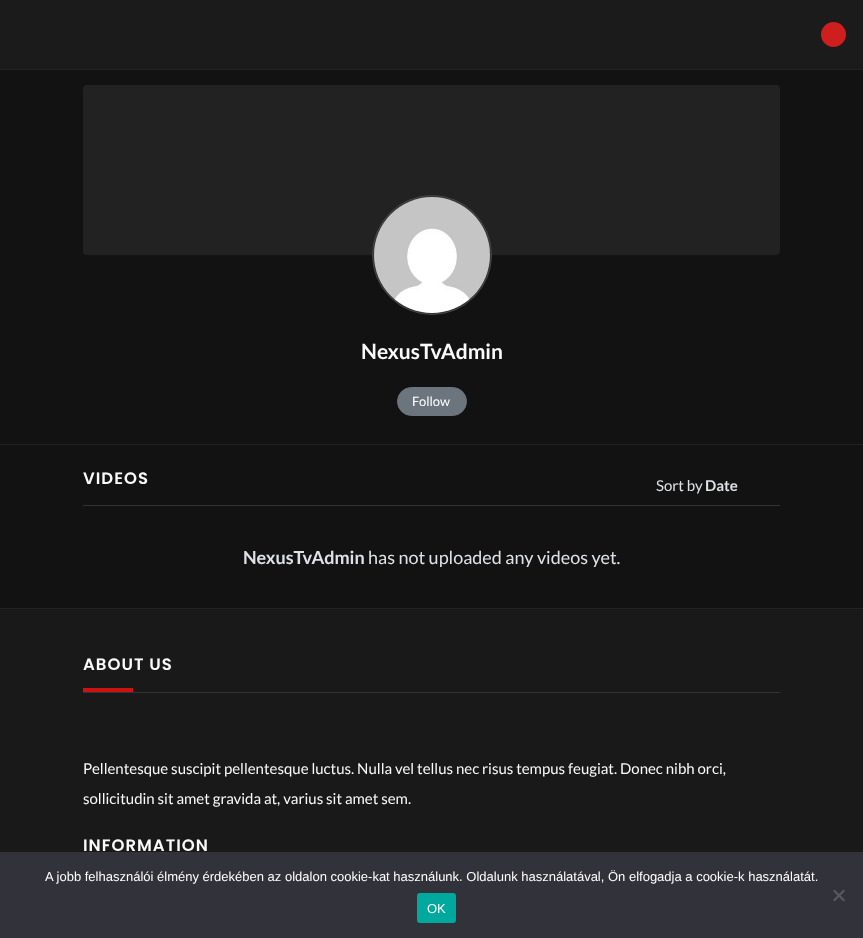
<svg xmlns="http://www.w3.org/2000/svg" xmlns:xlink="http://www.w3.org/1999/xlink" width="863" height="938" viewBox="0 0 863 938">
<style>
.cls-1{font:bold 21px Lato;fill:#f9f9f9}
.cls-2{font:13px Lato;fill:#ffffff}
.cls-3{font:600 16.5px Poppins;letter-spacing:1px;fill:#f9f9f9}
.cls-4{font:15px Lato;fill:#dee2e6}
.cls-5{font:bold 15px Lato;fill:#dee2e6}
.cls-6{font:bold 18px Lato;fill:#dee2e6}
.cls-7{font:18px Lato;fill:#dee2e6}
.cls-8{font:15px Lato;fill:#f9f9f9}
.cls-9{font:13px Liberation Sans;fill:#ffffff}
</style>
<rect width="100%" height="100%" fill="#121212"/>
<rect fill="#1b1b1b" x="0" y="0" width="863" height="69"/>
<rect fill="#222222" x="0" y="69" width="863" height="1"/>
<circle fill="#ce1e1e" cx="833.5" cy="34.5" r="12.5"/>
<rect fill="#222222" x="83" y="85" width="697" height="170" rx="4"/>
<circle fill="#333333" stroke="#444444" cx="432" cy="255" r="59.5"/>
<image xlink:href="image0.png" x="374" y="197" width="116" height="116"/>
<rect fill="#222222" x="0" y="444" width="863" height="1"/>
<rect fill="#6c757d" stroke="#6c757d" x="397.5" y="387.5" width="69" height="28" rx="14"/>
<rect fill="#333333" x="83" y="505" width="697" height="1"/>
<rect fill="#191919" x="0" y="609" width="863" height="243"/>
<rect fill="#222222" x="0" y="608" width="863" height="1"/>
<rect fill="#333333" x="83" y="692" width="697" height="1"/>
<rect fill="#ce1212" x="83" y="688" width="50" height="4"/>
<rect fill="#32323a" x="0" y="852" width="863" height="86"/>
<path fill="#59595d" d="M843.5 889.5L845 891L834.5 901.5L833 900Z"/>
<path fill="#59595d" d="M833 891L834.5 889.5L845 900L843.5 901.5Z"/>
<rect fill="#00a99d" x="417" y="893" width="39" height="30" rx="3"/>
<text class="cls-1" x="361" y="359">NexusTvAdmin</text>
<text class="cls-2" x="412" y="406">Follow</text>
<text class="cls-3" x="83" y="484">VIDEOS</text>
<text class="cls-4" x="656" y="491">Sort by</text>
<text class="cls-5" x="705" y="491">Date</text>
<text class="cls-6" x="243" y="564">NexusTvAdmin</text>
<text class="cls-7" x="368" y="564">has not uploaded any videos yet.</text>
<text class="cls-3" x="83" y="670">ABOUT US</text>
<text class="cls-8" x="83" y="774">Pellentesque suscipit pellentesque luctus. Nulla vel tellus nec risus tempus feugiat. Donec nibh orci,</text>
<text class="cls-8" x="83" y="804">sollicitudin sit amet gravida at, varius sit amet sem.</text>
<text class="cls-3" x="83" y="851">INFORMATION</text>
<text class="cls-9" x="45" y="881">A jobb felhasználói élmény érdekében az oldalon cookie-kat használunk. Oldalunk használatával, Ön elfogadja a cookie-k használatát.</text>
<text class="cls-9" x="427" y="913">OK</text>
</svg>
